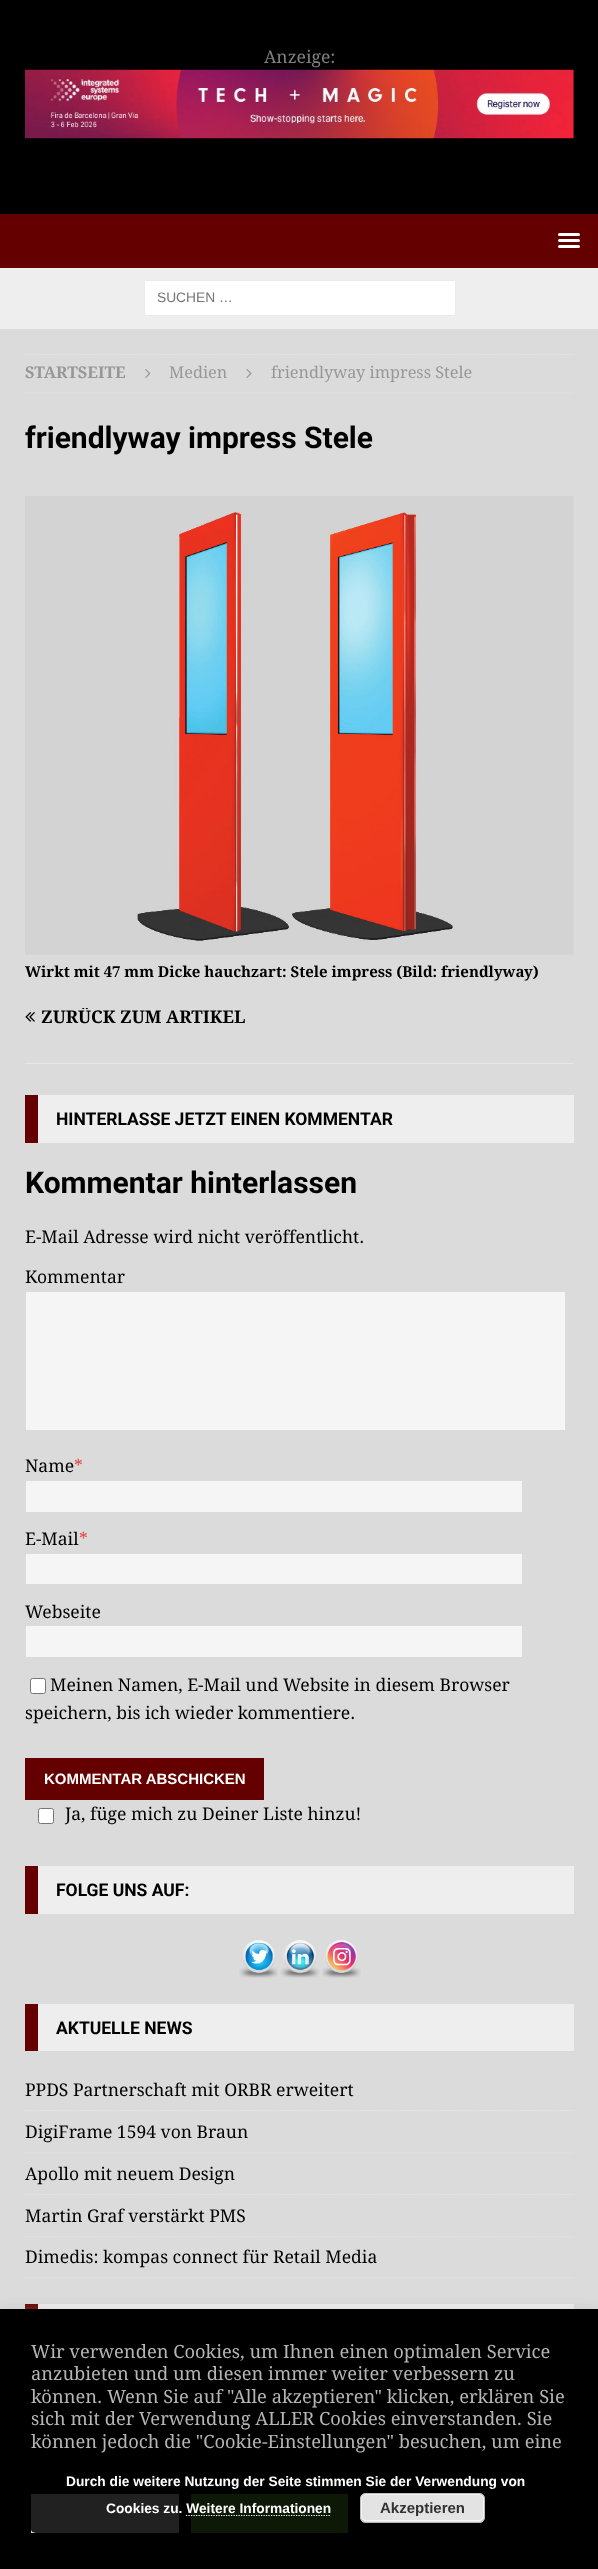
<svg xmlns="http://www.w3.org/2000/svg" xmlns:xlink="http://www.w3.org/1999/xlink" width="598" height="2569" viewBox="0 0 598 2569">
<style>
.cls-1{font:17.5px Droid Serif;fill:#808080}
.cls-2{font:13.75px Liberation Sans;fill:#757575}
.cls-3{font:bold 16.25px Droid Serif;fill:#979797}
.cls-4{font:16.25px Droid Serif;fill:#979797}
.cls-5{font:bold 30px Roboto;fill:#000000}
.cls-6{font:bold 15px Droid Serif;fill:#000000}
.cls-7{font:bold 17.5px Droid Serif;fill:#000000}
.cls-8{font:bold 17.5px Roboto;fill:#000000}
.cls-9{font:17.5px Droid Serif;fill:#000000}
.cls-10{font:17.5px Droid Serif;fill:#e64946}
.cls-11{font:bold 15px Liberation Sans;fill:#ffffff}
.cls-12{font:18.3px Droid Serif;fill:#b5b5b5}
.cls-13{font:bold 13.75px Liberation Sans;fill:#ffffff}
.cls-14{font:bold 15px Liberation Sans;fill:#333333}
</style>
<defs>
<clipPath id="clip1"><rect x="25" y="354" width="549" height="1487"/></clipPath>
<clipPath id="clip2"><rect x="25" y="1008" width="549" height="17"/></clipPath>
</defs>
<rect width="100%" height="100%" fill="#000000"/>
<image xlink:href="image0.png" x="25" y="69" width="549" height="70"/>
<rect fill="#650000" x="0" y="214" width="598" height="54"/>
<rect fill="#ffffff" x="558" y="233" width="22" height="3" rx="1.5"/>
<rect fill="#ffffff" x="558" y="239" width="22" height="3" rx="1.5"/>
<rect fill="#ffffff" x="558" y="245" width="22" height="3" rx="1.5"/>
<rect fill="#eeeeee" x="0" y="268" width="598" height="61"/>
<rect fill="#ffffff" stroke="#ebebeb" x="144.5" y="280.5" width="311" height="35"/>
<rect fill="#dbdbdb" x="0" y="329" width="598" height="1980"/>
<g clip-path="url(#clip1)">
<path fill="none" stroke="#e6e6e6" stroke-width="1.2" stroke-dasharray="1.25 1.25" d="M25 354.5H574"/>
</g>
<path fill="none" stroke="#e6e6e6" stroke-width="1.2" stroke-dasharray="1.25 1.25" d="M25 393H574"/>
<image xlink:href="image1.png" x="145" y="369" width="6" height="9"/>
<image xlink:href="image2.png" x="246" y="369" width="6" height="9"/>
<image xlink:href="image3.png" x="25" y="496" width="549" height="459"/>
<rect fill="#e6e6e6" x="25" y="1063" width="549" height="1"/>
<image xlink:href="image4.png" x="25" y="1012" width="10" height="10"/>
<rect fill="#eeeeee" x="38" y="1095" width="536" height="48"/>
<rect fill="#650000" x="25" y="1095" width="13" height="48"/>
<rect fill="#f5f5f5" x="26" y="1292" width="539" height="138"/>
<rect fill="#f5f5f5" x="26" y="1481" width="496" height="31"/>
<rect fill="#f5f5f5" x="26" y="1554" width="496" height="30"/>
<rect fill="#f5f5f5" x="26" y="1626" width="496" height="31"/>
<rect fill="#ffffff" stroke="#767676" x="30.5" y="1678.5" width="15" height="15" rx="2"/>
<rect fill="#650000" x="25" y="1758" width="239" height="42"/>
<rect fill="#ffffff" stroke="#767676" x="38.5" y="1808.5" width="15" height="15" rx="2"/>
<rect fill="#eeeeee" x="38" y="1866" width="536" height="48"/>
<rect fill="#650000" x="25" y="1866" width="13" height="48"/>
<image xlink:href="image5.png" x="239" y="1940" width="39" height="38"/>
<image xlink:href="image6.png" x="280" y="1940" width="40" height="38"/>
<image xlink:href="image7.png" x="322" y="1940" width="39" height="38"/>
<rect fill="#eeeeee" x="38" y="2004" width="536" height="47"/>
<rect fill="#650000" x="25" y="2004" width="13" height="47"/>
<path fill="none" stroke="#e6e6e6" stroke-width="1.2" stroke-dasharray="1.25 1.25" d="M25 2110.5H574"/>
<path fill="none" stroke="#e6e6e6" stroke-width="1.2" stroke-dasharray="1.25 1.25" d="M25 2153H574"/>
<path fill="none" stroke="#e6e6e6" stroke-width="1.2" stroke-dasharray="1.25 1.25" d="M25 2194.5H574"/>
<path fill="none" stroke="#e6e6e6" stroke-width="1.2" stroke-dasharray="1.25 1.25" d="M25 2237H574"/>
<path fill="none" stroke="#e6e6e6" stroke-width="1.2" stroke-dasharray="1.25 1.25" d="M25 2278H574"/>
<rect fill="#eeeeee" x="38" y="2304" width="536" height="5"/>
<rect fill="#650000" x="25" y="2304" width="13" height="5"/>
<rect fill="#acabab" fill-opacity="0.3" filter="blur(6px)" x="0" y="2308" width="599" height="261"/>
<rect fill="#000000" x="0" y="2309" width="598" height="260"/>
<rect fill="#dedfe0" x="31" y="2494" width="148" height="39"/>
<rect fill="#61a229" x="191" y="2494" width="157" height="39"/>
<rect fill="#000000" fill-opacity="0.85" x="30" y="2460" width="531" height="73" rx="6"/>
<rect fill="#e3e3e3" x="360" y="2493" width="125" height="30" rx="6"/>
<rect fill="none" stroke="#f6f6f6" x="361.5" y="2494.5" width="122" height="26" rx="4.5"/>
<rect fill="none" stroke="#bbbbbb" x="360.5" y="2493.5" width="124" height="29" rx="5.5"/>
<path fill="none" stroke="#ffffff" stroke-width="1.2" stroke-dasharray="1.25 1.25" d="M186 2515.5H331"/>
<text class="cls-1" x="264" y="63">Anzeige:</text>
<text class="cls-2" x="157" y="302">SUCHEN …</text>
<text class="cls-3" x="25" y="378">STARTSEITE</text>
<text class="cls-4" x="169" y="378">Medien</text>
<text class="cls-4" x="271" y="378">friendlyway impress Stele</text>
<text class="cls-5" x="25" y="448">friendlyway impress Stele</text>
<text class="cls-6" x="25" y="977">Wirkt mit 47 mm Dicke hauchzart: Stele impress (Bild: friendlyway)</text>
<g clip-path="url(#clip2)">
<text class="cls-7" x="41" y="1023">ZURÜCK ZUM ARTIKEL</text>
</g>
<text class="cls-8" x="56" y="1125">HINTERLASSE JETZT EINEN KOMMENTAR</text>
<text class="cls-5" x="25" y="1193">Kommentar hinterlassen</text>
<text class="cls-9" x="25" y="1243">E-Mail Adresse wird nicht veröffentlicht.</text>
<text class="cls-9" x="25" y="1283">Kommentar</text>
<text class="cls-9" x="25" y="1472">Name</text>
<text class="cls-10" x="74" y="1472">*</text>
<text class="cls-9" x="25" y="1545">E-Mail</text>
<text class="cls-10" x="79" y="1545">*</text>
<text class="cls-9" x="25" y="1618">Webseite</text>
<text class="cls-9" x="50" y="1691">Meinen Namen, E-Mail und Website in diesem Browser</text>
<text class="cls-9" x="25" y="1719">speichern, bis ich wieder kommentiere.</text>
<text class="cls-11" x="44" y="1784">KOMMENTAR ABSCHICKEN</text>
<text class="cls-9" x="65" y="1820">Ja, füge mich zu Deiner Liste hinzu!</text>
<text class="cls-8" x="56" y="1896">FOLGE UNS AUF:</text>
<text class="cls-8" x="56" y="2034">AKTUELLE NEWS</text>
<text class="cls-9" x="25" y="2096">PPDS Partnerschaft mit ORBR erweitert</text>
<text class="cls-9" x="25" y="2138">DigiFrame 1594 von Braun</text>
<text class="cls-9" x="25" y="2180">Apollo mit neuem Design</text>
<text class="cls-9" x="25" y="2222">Martin Graf verstärkt PMS</text>
<text class="cls-9" x="25" y="2263">Dimedis: kompas connect für Retail Media</text>
<text class="cls-12"><tspan x="31" y="2358">Wir verwenden Cookies, um Ihnen einen optimalen Service</tspan><tspan x="31" y="2380">anzubieten und um diesen immer weiter verbessern zu</tspan><tspan x="31" y="2403">können. Wenn Sie auf "Alle akzeptieren" klicken, erklären Sie</tspan><tspan x="31" y="2425">sich mit der Verwendung ALLER Cookies einverstanden. Sie</tspan><tspan x="31" y="2448">können jedoch die "Cookie-Einstellungen" besuchen, um eine</tspan></text>
<text class="cls-13" x="66" y="2486">Durch die weitere Nutzung der Seite stimmen Sie der Verwendung von</text>
<text class="cls-13" x="106" y="2513">Cookies zu. Weitere Informationen</text>
<text class="cls-14" x="380" y="2513">Akzeptieren</text>
</svg>
